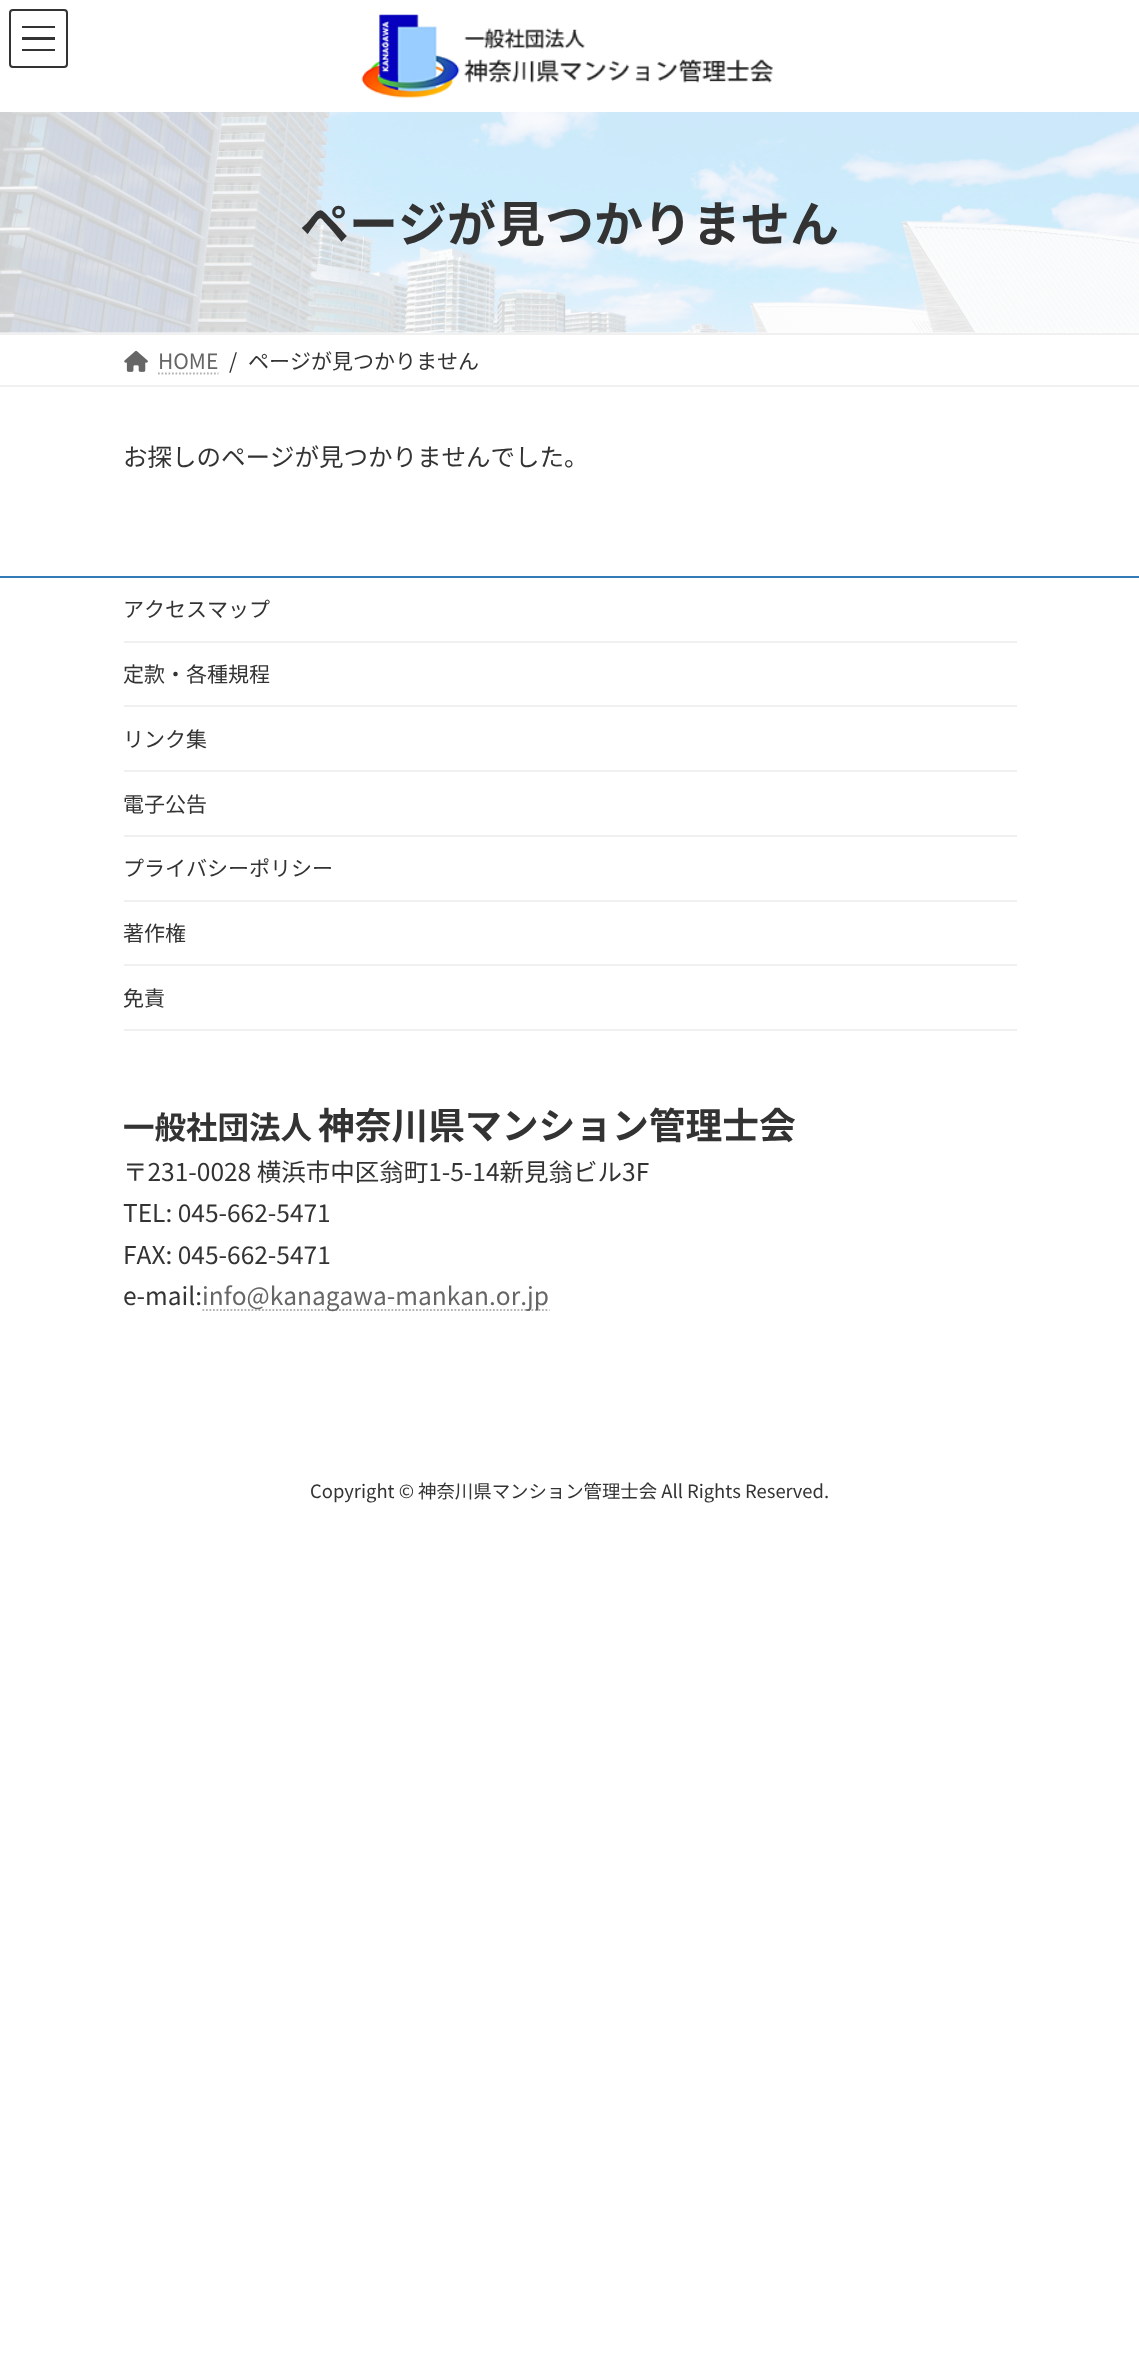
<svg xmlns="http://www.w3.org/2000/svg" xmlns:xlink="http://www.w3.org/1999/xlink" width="1139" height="2359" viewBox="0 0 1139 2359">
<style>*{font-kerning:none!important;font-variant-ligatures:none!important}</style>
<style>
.cls-1{font:bold 49px Noto Sans JP;fill:#333333}
.cls-2{font:21px Noto Sans JP;fill:#666666}
.cls-3{font:21px Noto Sans JP;fill:#333333}
.cls-4{font:24.5px Noto Sans JP;fill:#333333}
.cls-5{font:bold 31.5px Noto Sans JP;fill:#333333}
.cls-6{font:bold 36.75px Noto Sans JP;fill:#333333}
.cls-7{font:24.5px Noto Sans JP;fill:#666666}
.cls-8{font:18.4px Noto Sans JP;fill:#333333}
</style>
<rect width="100%" height="100%" fill="#ffffff"/>
<rect fill="#333333" x="22" y="26" width="33" height="2"/>
<rect fill="#333333" x="22" y="37" width="33" height="3"/>
<rect fill="#333333" x="22" y="49" width="33" height="2"/>
<rect fill="none" stroke="#333333" stroke-width="2" x="10" y="10" width="57" height="57" rx="3"/>
<image xlink:href="image0.png" x="361" y="14" width="413" height="84"/>
<image xlink:href="image1.png" x="0" y="112" width="1139" height="221"/>
<rect fill="#f0f0f0" x="0" y="333" width="1139" height="2"/>
<rect fill="#f0f0f0" x="0" y="385" width="1139" height="2"/>
<image xlink:href="image2.png" x="124" y="350" width="24" height="22"/>
<path fill="none" stroke="#b3b3b3" stroke-width="1.8" stroke-dasharray="1.75 1.75" d="M158 373.5H218.5"/>
<rect fill="#337ab7" x="0" y="576" width="1139" height="2"/>
<rect fill="#f0f0f0" x="124" y="641" width="893" height="2"/>
<rect fill="#f0f0f0" x="124" y="705" width="893" height="2"/>
<rect fill="#f0f0f0" x="124" y="770" width="893" height="2"/>
<rect fill="#f0f0f0" x="124" y="835" width="893" height="2"/>
<rect fill="#f0f0f0" x="124" y="900" width="893" height="2"/>
<rect fill="#f0f0f0" x="124" y="964" width="893" height="2"/>
<rect fill="#f0f0f0" x="124" y="1029" width="893" height="2"/>
<path fill="none" stroke="#b3b3b3" stroke-width="1.8" stroke-dasharray="1.75 1.75" d="M202.5 1310H549.5"/>
<text class="cls-1" x="300" y="242">ページが見つかりません</text>
<text class="cls-2" x="158" y="369">HOME</text>
<text class="cls-3" x="229" y="369">/</text>
<text class="cls-3" x="248" y="369">ページが見つかりません</text>
<text class="cls-4" x="123" y="466">お探しのページが見つかりませんでした。</text>
<text class="cls-3" x="123" y="617">アクセスマップ</text>
<text class="cls-3" x="123" y="682">定款・各種規程</text>
<text class="cls-3" x="123" y="747">リンク集</text>
<text class="cls-3" x="123" y="812">電子公告</text>
<text class="cls-3" x="123" y="876">プライバシーポリシー</text>
<text class="cls-3" x="123" y="941">著作権</text>
<text class="cls-3" x="123" y="1006">免責</text>
<text class="cls-5" x="123" y="1139">一般社団法人</text>
<text class="cls-6" x="318" y="1139">神奈川県マンション管理士会</text>
<text class="cls-4"><tspan x="123" y="1181">〒231-0028 横浜市中区翁町1-5-14新見翁ビル3F</tspan><tspan x="123" y="1222">TEL: 045-662-5471</tspan><tspan x="123" y="1264">FAX: 045-662-5471</tspan><tspan x="123" y="1305">e-mail:</tspan></text>
<text class="cls-7" x="202" y="1305">info@kanagawa-mankan.or.jp</text>
<text class="cls-8" x="310" y="1498">Copyright © 神奈川県マンション管理士会 All Rights Reserved.</text>
</svg>
